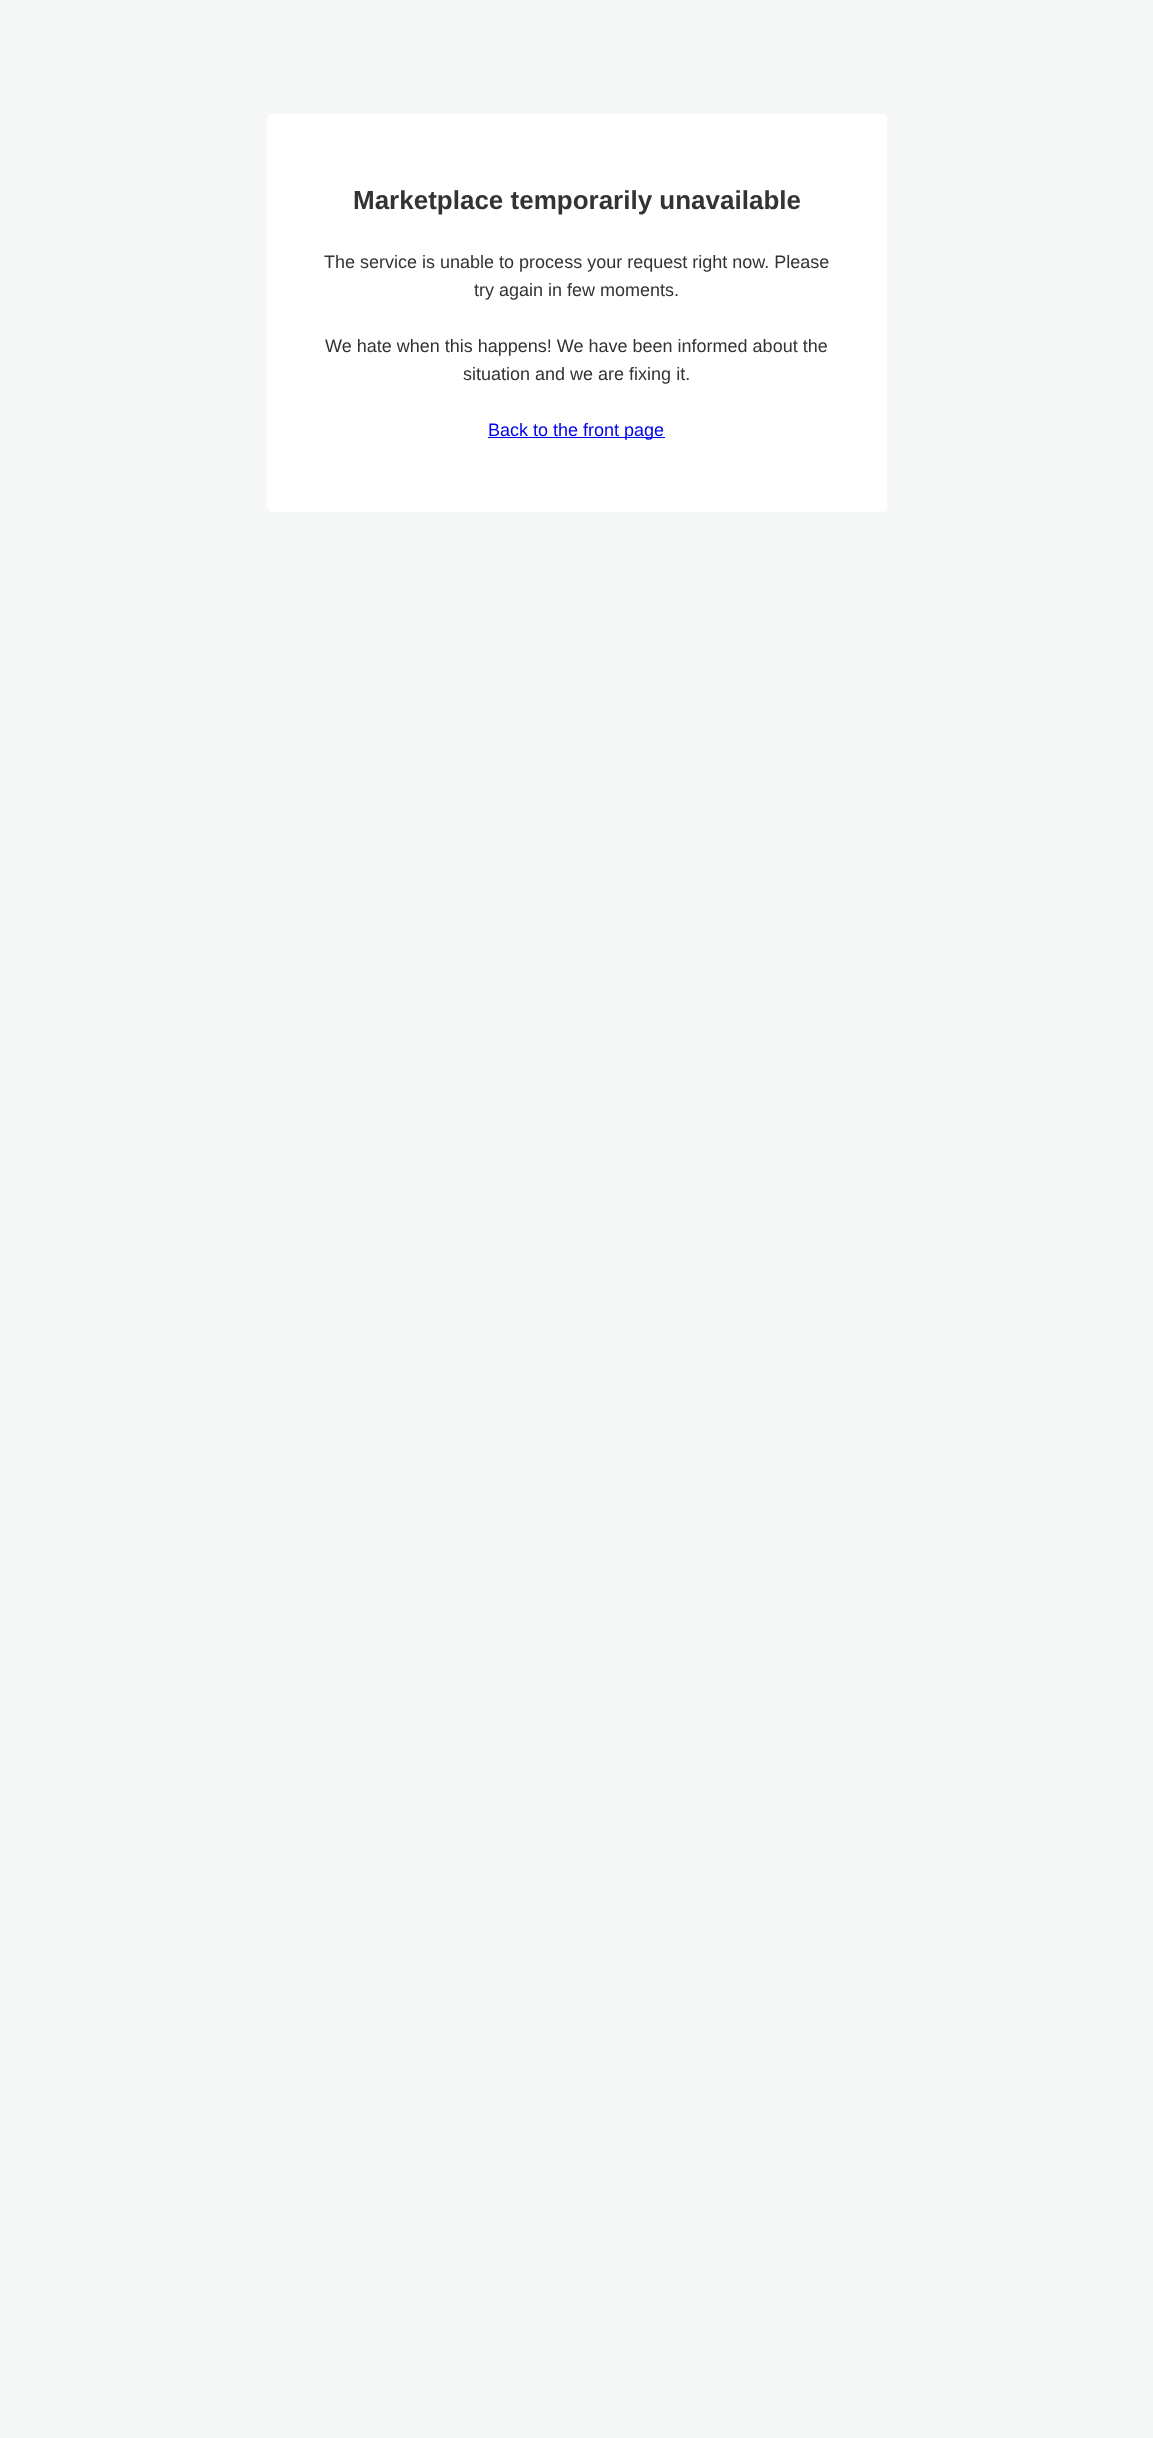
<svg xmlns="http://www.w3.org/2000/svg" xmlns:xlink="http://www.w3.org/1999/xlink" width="1153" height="2438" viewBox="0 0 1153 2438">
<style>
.cls-1{font:bold 26px Liberation Sans;fill:#333333}
.cls-2{font:18px Liberation Sans;fill:#333333}
.cls-3{font:18px Liberation Sans;fill:#0000ee}
</style>
<rect width="100%" height="100%" fill="#f6f7f7"/>
<rect fill="#ffffff" x="267" y="114" width="620" height="398" rx="5"/>
<rect fill="#0000ee" x="488" y="437" width="177" height="1"/>
<text class="cls-1" x="353" y="209">Marketplace temporarily unavailable</text>
<text class="cls-2" x="324" y="268">The service is unable to process your request right now. Please</text>
<text class="cls-2" x="474" y="296">try again in few moments.</text>
<text class="cls-2" x="325" y="352">We hate when this happens! We have been informed about the</text>
<text class="cls-2" x="463" y="380">situation and we are fixing it.</text>
<text class="cls-3" x="488" y="436">Back to the front page</text>
</svg>
